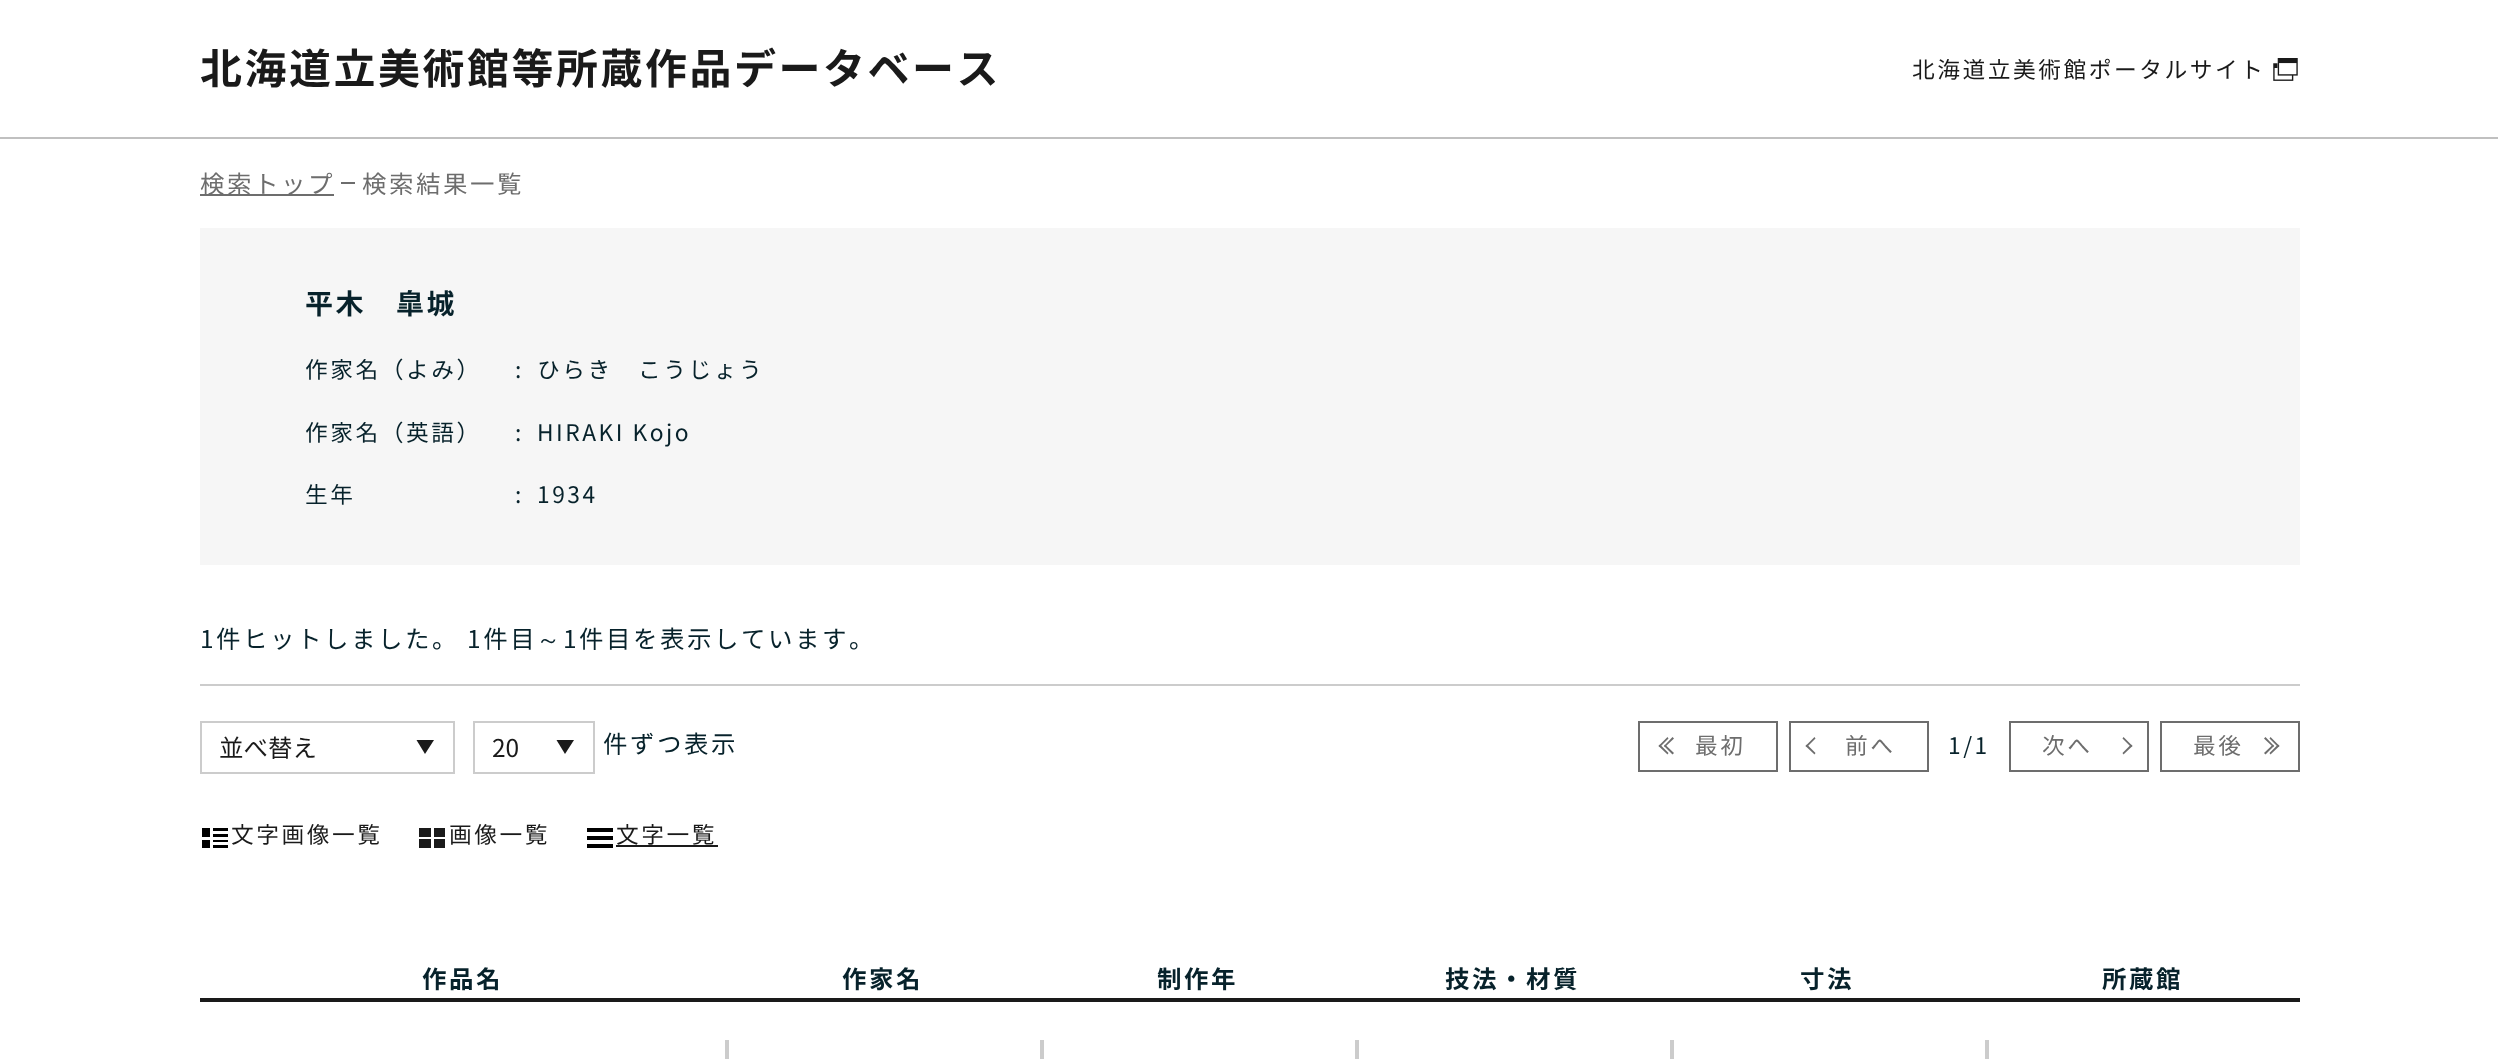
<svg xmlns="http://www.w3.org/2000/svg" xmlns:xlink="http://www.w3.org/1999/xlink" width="2498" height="1059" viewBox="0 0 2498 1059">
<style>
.cls-1{font:bold 42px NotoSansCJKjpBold;letter-spacing:2.5px;fill:#1a1a1a}
.cls-2{font:22.75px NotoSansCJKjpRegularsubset;letter-spacing:2.5px;fill:#1a1a1a}
.cls-3{font:24.5px NotoSansCJKjpRegularsubset;letter-spacing:2.5px;fill:#6d6d6d}
.cls-4{font:bold 28px NotoSansCJKjpBold;letter-spacing:2.5px;fill:#07222b}
.cls-5{font:22.75px NotoSansCJKjpRegularsubset;letter-spacing:2.5px;fill:#07222b}
.cls-6{font:24.5px NotoSansCJKjpRegularsubset;letter-spacing:2.5px;fill:#07222b}
.cls-7{font:500 24.5px WenQuanYi Zen Hei;letter-spacing:2.5px;fill:#07222b}
.cls-8{font:24.5px NotoSansCJKjpRegularsubset;fill:#1a1a1a}
.cls-9{font:22.75px NotoSansCJKjpRegularsubset;letter-spacing:2.5px;fill:#6d6d6d}
.cls-10{font:bold 24.5px NotoSansCJKjpBold;letter-spacing:2.5px;fill:#07222b}
</style>
<rect width="100%" height="100%" fill="#ffffff"/>
<rect fill="#c0c0c0" x="0" y="137" width="2498" height="2"/>
<image xlink:href="image0.png" x="2273" y="58" width="25" height="23"/>
<rect fill="#6d6d6d" x="200" y="194" width="134" height="2"/>
<rect fill="#6d6d6d" x="341" y="182" width="14" height="2"/>
<rect fill="#f6f6f6" x="200" y="228" width="2100" height="337"/>
<rect fill="#cccccc" x="200" y="684" width="2100" height="2"/>
<rect fill="none" stroke="#cccccc" stroke-width="2" x="201" y="722" width="253" height="51"/>
<path fill="#1a1a1a" d="M416.5 740H434L425 754Z"/>
<rect fill="none" stroke="#cccccc" stroke-width="2" x="474" y="722" width="120" height="51"/>
<path fill="#1a1a1a" d="M556.5 740H574L565 754Z"/>
<rect fill="none" stroke="#6d6d6d" stroke-width="2" x="1639" y="722" width="138" height="49"/>
<path fill="#6d6d6d" d="M1660 744.5L1668.5 753L1667.5 754.5L1658.5 746Z"/>
<path fill="#6d6d6d" d="M1667.5 737L1668.5 738.5L1660 747L1658.5 746Z"/>
<path fill="#6d6d6d" d="M1665 744.5L1674 753L1672.5 754.5L1664 746Z"/>
<path fill="#6d6d6d" d="M1672.5 737L1674 738.5L1665 747L1664 746Z"/>
<rect fill="none" stroke="#6d6d6d" stroke-width="2" x="1790" y="722" width="138" height="49"/>
<path fill="#6d6d6d" d="M1807 744.5L1815.5 753L1814.5 754.5L1805.5 746Z"/>
<path fill="#6d6d6d" d="M1814.5 737L1815.5 738.5L1807 747L1805.5 746Z"/>
<rect fill="none" stroke="#6d6d6d" stroke-width="2" x="2010" y="722" width="138" height="49"/>
<path fill="#6d6d6d" d="M2123.5 737L2132.5 746L2131 747L2122.5 738.5Z"/>
<path fill="#6d6d6d" d="M2131 744.5L2132.5 746L2123.5 754.5L2122.5 753Z"/>
<rect fill="none" stroke="#6d6d6d" stroke-width="2" x="2161" y="722" width="138" height="49"/>
<path fill="#6d6d6d" d="M2270.5 737L2279.5 746L2278 747L2269.5 738.5Z"/>
<path fill="#6d6d6d" d="M2278 744.5L2279.5 746L2270.5 754.5L2269.5 753Z"/>
<path fill="#6d6d6d" d="M2265.5 737L2274 746L2273 747L2264 738.5Z"/>
<path fill="#6d6d6d" d="M2273 744.5L2274 746L2265.5 754.5L2264 753Z"/>
<image xlink:href="image1.png" x="202" y="828" width="26" height="20"/>
<rect fill="#1a1a1a" x="419" y="828" width="12" height="9"/>
<rect fill="#1a1a1a" x="434" y="828" width="11" height="9"/>
<rect fill="#1a1a1a" x="419" y="839" width="12" height="9"/>
<rect fill="#1a1a1a" x="434" y="839" width="11" height="9"/>
<rect fill="#000000" x="587" y="828" width="26" height="4"/>
<rect fill="#000000" x="587" y="836" width="26" height="4"/>
<rect fill="#000000" x="587" y="844" width="26" height="4"/>
<rect fill="#1a1a1a" x="616" y="845" width="102" height="2"/>
<rect fill="#1a1a1a" x="200" y="998" width="2100" height="4"/>
<rect fill="#cccccc" x="725" y="1040" width="4" height="19"/>
<rect fill="#cccccc" x="1040" y="1040" width="4" height="19"/>
<rect fill="#cccccc" x="1355" y="1040" width="4" height="19"/>
<rect fill="#cccccc" x="1670" y="1040" width="4" height="19"/>
<rect fill="#cccccc" x="1985" y="1040" width="4" height="19"/>
<text class="cls-1" x="200" y="84">北海道立美術館等所蔵作品データベース</text>
<text class="cls-2" x="1912" y="78">北海道立美術館ポータルサイト</text>
<text class="cls-3" x="200" y="193">検索トップ</text>
<text class="cls-3" x="362" y="193">検索結果一覧</text>
<text class="cls-4" x="305" y="314">平木</text>
<text class="cls-4" x="396" y="314">皐城</text>
<text class="cls-5" x="305" y="378">作家名（よみ）</text>
<text class="cls-5" x="515" y="378">:</text>
<text class="cls-5" x="537" y="378">ひらき</text>
<text class="cls-5" x="638" y="378">こうじょう</text>
<text class="cls-5" x="305" y="441">作家名（英語）</text>
<text class="cls-5" x="515" y="441">:</text>
<text class="cls-5" x="537" y="441">HIRAKI Kojo</text>
<text class="cls-5" x="305" y="503">生年</text>
<text class="cls-5" x="515" y="503">:</text>
<text class="cls-5" x="537" y="503">1934</text>
<text class="cls-6" x="200" y="648">1件ヒットしました。 1件目</text>
<text class="cls-7" x="536" y="648">～</text>
<text class="cls-6" x="563" y="648">1件目を表示しています。</text>
<text class="cls-8" x="219" y="757">並べ替え</text>
<text class="cls-8" x="492" y="757">20</text>
<text class="cls-6" x="603" y="753">件ずつ表示</text>
<text class="cls-9" x="1695" y="754">最初</text>
<text class="cls-9" x="1845" y="754">前へ</text>
<text class="cls-5" x="1948" y="754">1/1</text>
<text class="cls-9" x="2042" y="754">次へ</text>
<text class="cls-9" x="2193" y="754">最後</text>
<text class="cls-2" x="231" y="843">文字画像一覧</text>
<text class="cls-2" x="449" y="843">画像一覧</text>
<text class="cls-2" x="616" y="843">文字一覧</text>
<text class="cls-10" x="422" y="988">作品名</text>
<text class="cls-10" x="842" y="988">作家名</text>
<text class="cls-10" x="1157" y="988">制作年</text>
<text class="cls-10" x="1445" y="988">技法・材質</text>
<text class="cls-10" x="1800" y="988">寸法</text>
<text class="cls-10" x="2102" y="988">所蔵館</text>
</svg>
